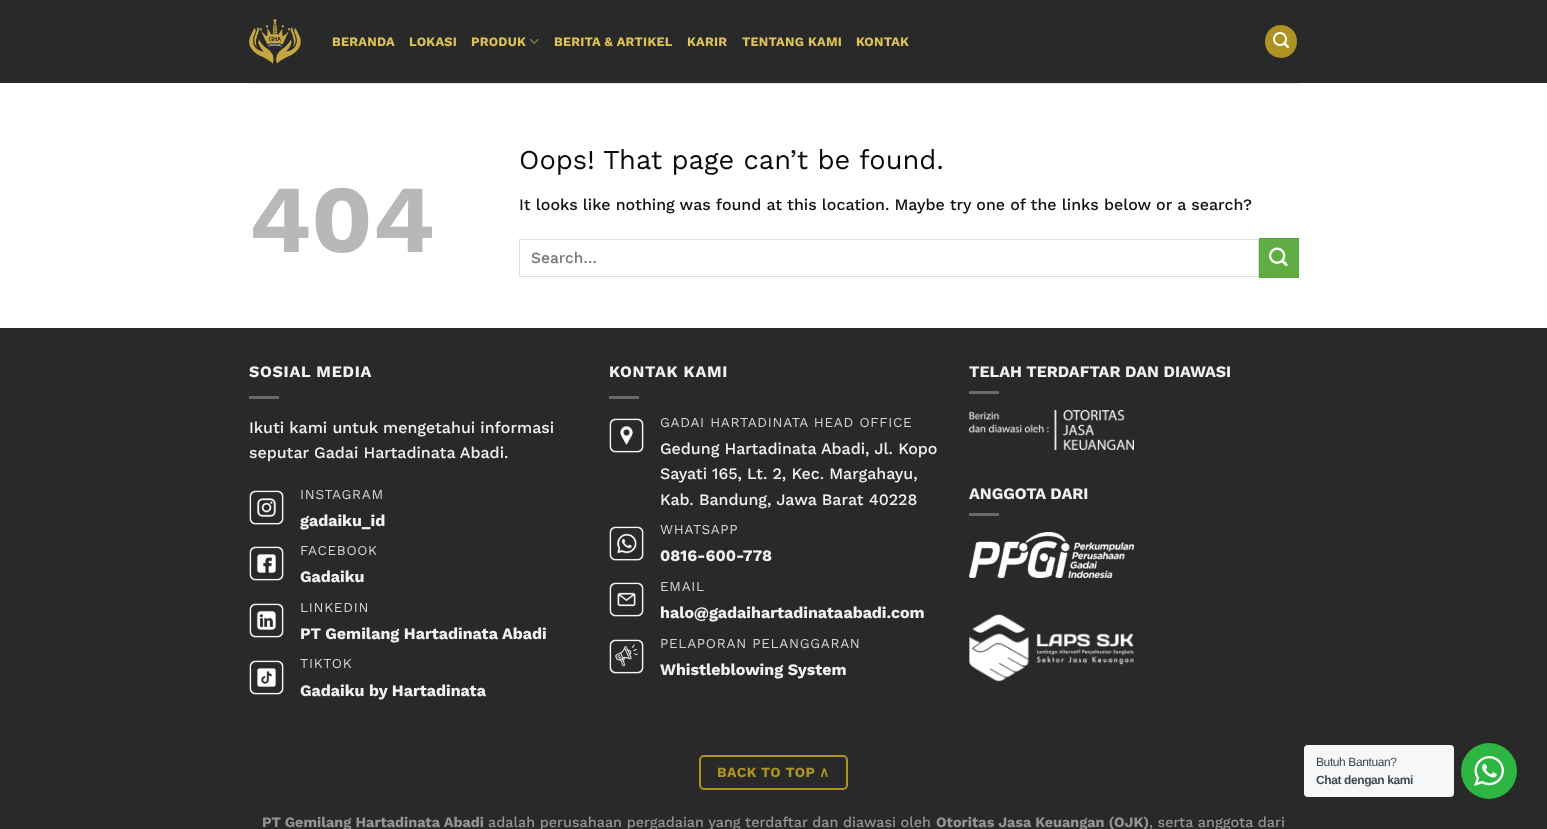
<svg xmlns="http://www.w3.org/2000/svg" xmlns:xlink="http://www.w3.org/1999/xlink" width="1547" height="829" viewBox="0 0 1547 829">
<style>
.cls-1{font:bold 12.75px Work Sans;letter-spacing:0.25px;fill:#ddc355}
.cls-2{font:bold 96px Work Sans;fill:#b8b8b8}
.cls-3{font:27.25px Work Sans;fill:#0a0a0a}
.cls-4{font:500 16px Work Sans;fill:#111111}
.cls-5{font:500 15.5px Work Sans;fill:#757575}
.cls-6{font:bold 16px Work Sans;letter-spacing:0.75px;fill:#f1f1f1}
.cls-7{font:500 16px Work Sans;fill:#f1f1f1}
.cls-8{font:13.6px Work Sans;letter-spacing:0.7px;fill:#d4d4d4}
.cls-9{font:bold 16px Work Sans;fill:#f1f1f1}
.cls-10{font:bold 14px Work Sans;letter-spacing:0.5px;fill:#ad9323}
.cls-11{font:bold 14px DejaVu Sans;letter-spacing:0.5px;fill:#ad9323}
.cls-12{font:bold 14.4px Work Sans;fill:#949494}
.cls-13{font:500 14.4px Work Sans;fill:#949494}
.cls-14{font:12px Liberation Sans;letter-spacing:-0.4px;fill:#43474e}
.cls-15{font:bold 12px Liberation Sans;letter-spacing:-0.4px;fill:#43474e}
</style>
<rect width="100%" height="100%" fill="#ffffff"/>
<rect fill="#292929" x="0" y="0" width="1547" height="83"/>
<image xlink:href="image0.png" x="249" y="19" width="52" height="45"/>
<image xlink:href="image1.png" x="529" y="38" width="10" height="6"/>
<rect fill="#ad9323" x="1265" y="25" width="32" height="33" rx="16"/>
<rect fill="none" stroke="#000000" stroke-opacity="0.05" x="1265.5" y="25.5" width="31" height="32"/>
<image xlink:href="image2.png" x="1273" y="32" width="16" height="16"/>
<rect fill="#e7e7e7" x="249" y="83" width="1050" height="1"/>
<rect fill="none" stroke="#dddddd" x="519.5" y="239.5" width="739" height="37"/>
<rect fill="#60ad43" stroke="#5ba440" x="1259.5" y="238.5" width="39" height="39"/>
<image xlink:href="image3.png" x="1269" y="247" width="19" height="20"/>
<rect fill="#292929" x="0" y="329" width="1547" height="500"/>
<rect fill="#272727" x="0" y="328" width="1547" height="1"/>
<rect fill="#696969" x="249" y="396" width="30" height="3"/>
<image xlink:href="image4.png" x="249" y="490" width="35" height="35"/>
<image xlink:href="image5.png" x="249" y="546" width="35" height="35"/>
<image xlink:href="image6.png" x="249" y="603" width="35" height="35"/>
<image xlink:href="image7.png" x="249" y="660" width="35" height="35"/>
<rect fill="#696969" x="609" y="396" width="30" height="3"/>
<image xlink:href="image8.png" x="609" y="418" width="35" height="35"/>
<image xlink:href="image9.png" x="609" y="526" width="35" height="35"/>
<image xlink:href="image10.png" x="609" y="582" width="35" height="35"/>
<image xlink:href="image11.png" x="609" y="639" width="35" height="35"/>
<rect fill="#696969" x="969" y="391" width="30" height="3"/>
<image xlink:href="image12.png" x="969" y="410" width="165" height="40"/>
<rect fill="#696969" x="969" y="513" width="30" height="3"/>
<image xlink:href="image13.png" x="969" y="532" width="165" height="46"/>
<image xlink:href="image14.png" x="969" y="614" width="165" height="68"/>
<rect fill="none" stroke="#ad9323" stroke-width="2" x="700" y="756" width="147" height="33" rx="4"/>
<rect fill="#f5f7f9" x="1304" y="745" width="150" height="52" rx="4"/>
<circle fill="#2db742" cx="1489" cy="771" r="28"/>
<image xlink:href="image15.png" x="1474" y="756" width="30" height="30"/>
<text class="cls-1" x="332" y="46">BERANDA</text>
<text class="cls-1" x="409" y="46">LOKASI</text>
<text class="cls-1" x="471" y="46">PRODUK</text>
<text class="cls-1" x="554" y="46">BERITA &amp; ARTIKEL</text>
<text class="cls-1" x="687" y="46">KARIR</text>
<text class="cls-1" x="742" y="46">TENTANG KAMI</text>
<text class="cls-1" x="856" y="46">KONTAK</text>
<text class="cls-2" x="249" y="252">404</text>
<text class="cls-3" x="519" y="169">Oops! That page can’t be found.</text>
<text class="cls-4" x="519" y="210">It looks like nothing was found at this location. Maybe try one of the links below or a search?</text>
<text class="cls-5" x="531" y="263">Search…</text>
<text class="cls-6" x="249" y="377">SOSIAL MEDIA</text>
<text class="cls-7"><tspan x="249" y="433">Ikuti kami untuk mengetahui informasi</tspan><tspan x="249" y="458">seputar Gadai Hartadinata Abadi.</tspan></text>
<text class="cls-8" x="300" y="499">INSTAGRAM</text>
<text class="cls-9" x="300" y="526">gadaiku_id</text>
<text class="cls-8" x="300" y="555">FACEBOOK</text>
<text class="cls-9" x="300" y="582">Gadaiku</text>
<text class="cls-8" x="300" y="612">LINKEDIN</text>
<text class="cls-9" x="300" y="639">PT Gemilang Hartadinata Abadi</text>
<text class="cls-8" x="300" y="668">TIKTOK</text>
<text class="cls-9" x="300" y="696">Gadaiku by Hartadinata</text>
<text class="cls-6" x="609" y="377">KONTAK KAMI</text>
<text class="cls-8" x="660" y="427">GADAI HARTADINATA HEAD OFFICE</text>
<text class="cls-7"><tspan x="660" y="454">Gedung Hartadinata Abadi, Jl. Kopo</tspan><tspan x="660" y="479">Sayati 165, Lt. 2, Kec. Margahayu,</tspan><tspan x="660" y="505">Kab. Bandung, Jawa Barat 40228</tspan></text>
<text class="cls-8" x="660" y="534">WHATSAPP</text>
<text class="cls-9" x="660" y="561">0816-600-778</text>
<text class="cls-8" x="660" y="591">EMAIL</text>
<text class="cls-9" x="660" y="618">halo@gadaihartadinataabadi.com</text>
<text class="cls-8" x="660" y="648">PELAPORAN PELANGGARAN</text>
<text class="cls-9" x="660" y="675">Whistleblowing System</text>
<text class="cls-9" x="969" y="377">TELAH TERDAFTAR DAN DIAWASI</text>
<text class="cls-9" x="969" y="499">ANGGOTA DARI</text>
<text class="cls-10" x="717" y="777">BACK TO TOP</text>
<text class="cls-11" x="819" y="777">∧</text>
<text class="cls-12" x="262" y="827">PT Gemilang Hartadinata Abadi</text>
<text class="cls-13" x="488" y="827">adalah perusahaan pergadaian yang terdaftar dan diawasi oleh</text>
<text class="cls-12" x="936" y="827">Otoritas Jasa Keuangan (OJK)</text>
<text class="cls-13" x="1149" y="827">, serta anggota dari</text>
<text class="cls-14" x="1316" y="766">Butuh Bantuan?</text>
<text class="cls-15" x="1316" y="784">Chat dengan kami</text>
</svg>
